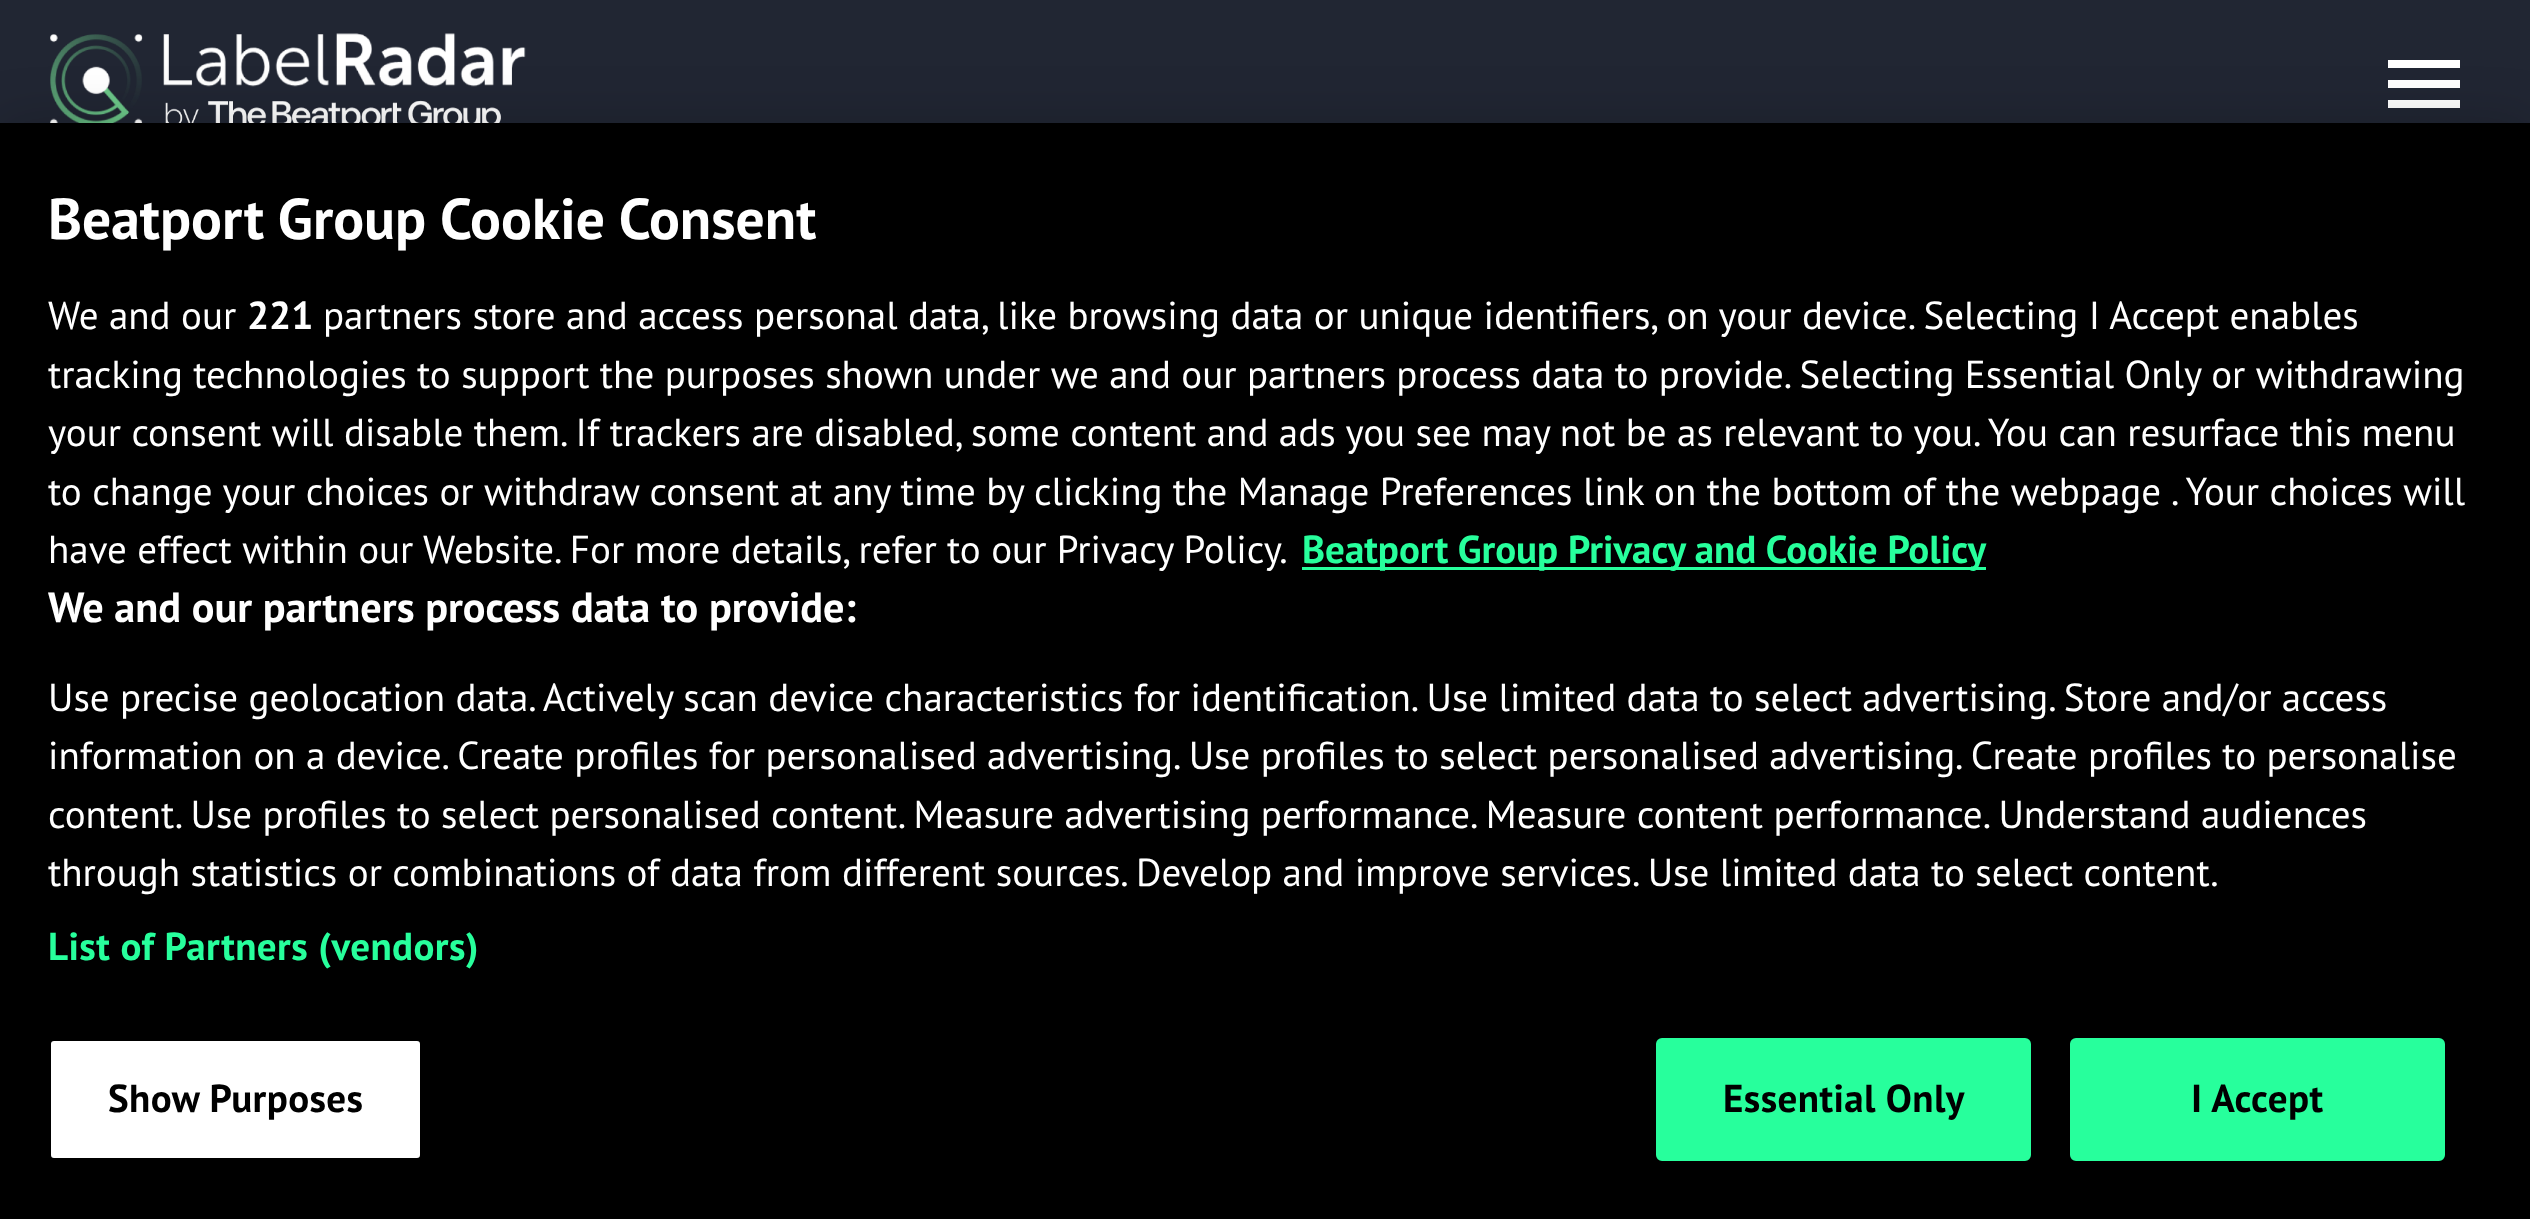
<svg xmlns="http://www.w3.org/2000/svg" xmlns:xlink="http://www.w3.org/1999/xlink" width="2530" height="1219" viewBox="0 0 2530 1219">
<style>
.cls-1{font:bold 57.6px PT Sans;fill:#ffffff}
.cls-2{font:39.02px PT Sans;fill:#ffffff}
.cls-3{font:bold 39.02px PT Sans;fill:#ffffff}
.cls-4{font:bold 39.02px PT Sans;fill:#27ff9c}
.cls-5{font:bold 42.25px PT Sans;fill:#ffffff}
.cls-6{font:bold 39.02px PT Sans;letter-spacing:0.4px;fill:#27ff9c}
.cls-7{font:bold 39.02px PT Sans;letter-spacing:0.4px;fill:#000000}
</style>
<rect width="100%" height="100%" fill="#212633"/>
<image xlink:href="image0.png" x="50" y="33" width="476" height="90"/>
<path fill="#ffffff" d="M2388 60H2460V68H2388ZM2388 80H2460V88H2388ZM2388 100H2460V108H2388Z"/>
<rect fill="#000000" fill-opacity="0.2" filter="blur(27px)" x="0" y="123" width="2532" height="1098"/>
<rect fill="#000000" x="0" y="123" width="2530" height="1096"/>
<rect fill="#27ff9c" x="1302" y="567" width="684" height="3"/>
<rect fill="#ffffff" stroke="#000000" stroke-width="3" x="49.5" y="1039.5" width="372" height="120" rx="4.5"/>
<rect fill="#27ff9c" stroke="#27ff9c" stroke-width="3" x="1657.5" y="1039.5" width="372" height="120" rx="4.5"/>
<rect fill="#27ff9c" stroke="#27ff9c" stroke-width="3" x="2071.5" y="1039.5" width="372" height="120" rx="4.5"/>
<text class="cls-1" x="48" y="239">Beatport Group Cookie Consent</text>
<text class="cls-2" x="48" y="329">We and our</text>
<text class="cls-3" x="247" y="329">221</text>
<text class="cls-2" x="323" y="329">partners store and access personal data, like browsing data or unique identifiers, on your device. Selecting I Accept enables</text>
<text class="cls-2"><tspan x="48" y="388">tracking technologies to support the purposes shown under we and our partners process data to provide. Selecting Essential Only or withdrawing</tspan><tspan x="48" y="446">your consent will disable them. If trackers are disabled, some content and ads you see may not be as relevant to you. You can resurface this menu</tspan><tspan x="48" y="505">to change your choices or withdraw consent at any time by clicking the Manage Preferences link on the bottom of the webpage . Your choices will</tspan><tspan x="48" y="563">have effect within our Website. For more details, refer to our Privacy Policy.</tspan></text>
<text class="cls-4" x="1302" y="563">Beatport Group Privacy and Cookie Policy</text>
<text class="cls-5" x="48" y="622">We and our partners process data to provide:</text>
<text class="cls-2"><tspan x="48" y="711">Use precise geolocation data. Actively scan device characteristics for identification. Use limited data to select advertising. Store and/or access</tspan><tspan x="48" y="769">information on a device. Create profiles for personalised advertising. Use profiles to select personalised advertising. Create profiles to personalise</tspan><tspan x="48" y="828">content. Use profiles to select personalised content. Measure advertising performance. Measure content performance. Understand audiences</tspan><tspan x="48" y="886">through statistics or combinations of data from different sources. Develop and improve services. Use limited data to select content.</tspan></text>
<text class="cls-6" x="48" y="960">List of Partners (vendors)</text>
<text class="cls-7" x="108" y="1112">Show Purposes</text>
<text class="cls-7" x="1723" y="1112">Essential Only</text>
<text class="cls-7" x="2191" y="1112">I Accept</text>
</svg>
